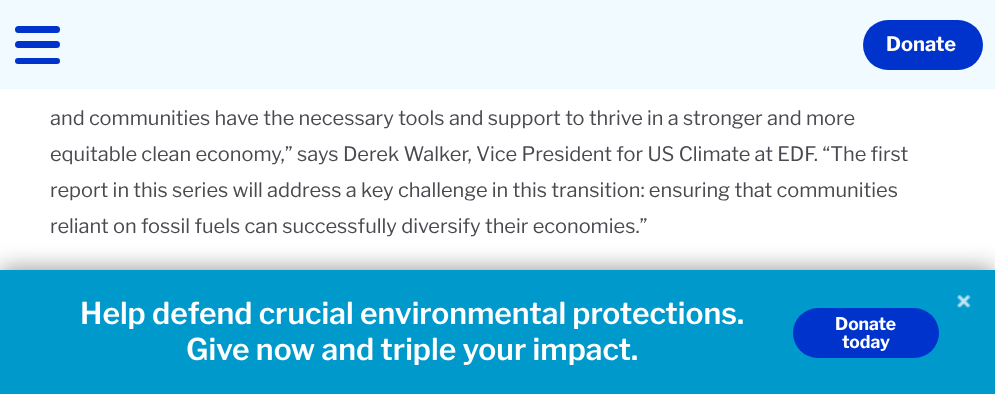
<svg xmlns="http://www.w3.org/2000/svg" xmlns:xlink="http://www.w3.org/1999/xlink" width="995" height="394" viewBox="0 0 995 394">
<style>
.cls-1{font:bold 20px Libre Franklin;fill:#ffffff}
.cls-2{font:20px Libre Franklin;fill:#494a50}
.cls-3{font:600 30px Libre Franklin;fill:#ffffff}
.cls-4{font:bold 17.5px Libre Franklin;fill:#ffffff}
</style>
<rect width="100%" height="100%" fill="#ffffff"/>
<rect fill="#f1fbff" x="0" y="0" width="995" height="89"/>
<rect fill="#0033cc" x="15" y="26" width="45" height="7" rx="3.5"/>
<rect fill="#0033cc" x="15" y="41" width="45" height="7" rx="3.5"/>
<rect fill="#0033cc" x="15" y="58" width="45" height="6" rx="3"/>
<rect fill="#0033cc" x="863" y="20" width="120" height="50" rx="25"/>
<rect fill="#000000" fill-opacity="0.45" filter="blur(12.5px)" x="0" y="270" width="995" height="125"/>
<rect fill="#0099cc" x="0" y="270" width="995" height="124"/>
<rect fill="#0033cc" x="793" y="308" width="146" height="50" rx="25"/>
<image xlink:href="image0.png" x="957" y="295" width="14" height="13"/>
<text class="cls-1" x="886" y="51">Donate</text>
<text class="cls-2"><tspan x="50" y="125">and communities have the necessary tools and support to thrive in a stronger and more</tspan><tspan x="50" y="161">equitable clean economy,” says Derek Walker, Vice President for US Climate at EDF. “The first</tspan><tspan x="50" y="197">report in this series will address a key challenge in this transition: ensuring that communities</tspan><tspan x="50" y="233">reliant on fossil fuels can successfully diversify their economies.”</tspan></text>
<text class="cls-3" x="80" y="324">Help defend crucial environmental protections.</text>
<text class="cls-3" x="186" y="360">Give now and triple your impact.</text>
<text class="cls-4" x="835" y="330">Donate</text>
<text class="cls-4" x="842" y="348">today</text>
</svg>
